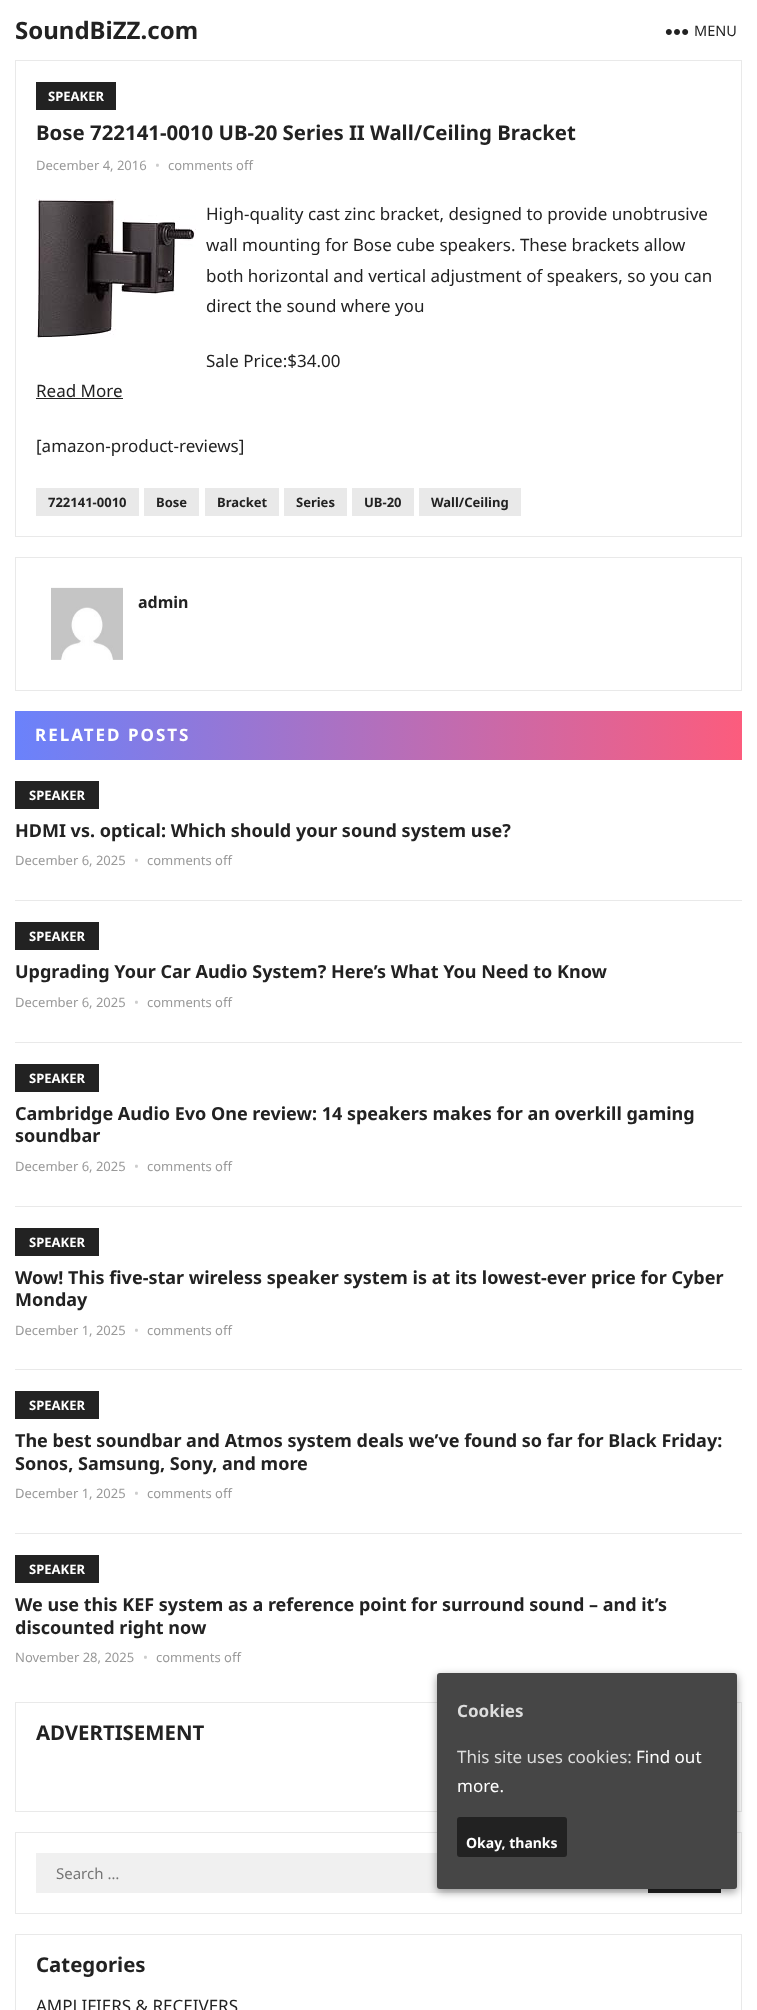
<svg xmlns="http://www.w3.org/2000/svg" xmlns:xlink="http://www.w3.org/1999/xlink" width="757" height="2010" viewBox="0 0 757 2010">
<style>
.cls-1{font:bold 24px Noto Sans;fill:#222222}
.cls-2{font:14.5px Noto Sans;fill:#222222}
.cls-3{font:bold 13px Noto Sans;fill:#ffffff}
.cls-4{font:bold 20.4px Noto Sans;fill:#222222}
.cls-5{font:13px Noto Sans;fill:#999999}
.cls-6{font:13px Noto Sans;fill:#cccccc}
.cls-7{font:17px Noto Sans;fill:#222222}
.cls-8{font:bold 13px Noto Sans;fill:#222222}
.cls-9{font:bold 16px Noto Sans;fill:#222222}
.cls-10{font:bold 17px Noto Sans;letter-spacing:2px;fill:#ffffff}
.cls-11{font:bold 18px Noto Sans;fill:#222222}
.cls-12{font:15px Noto Sans;fill:#757575}
.cls-13{font:bold 17px Noto Sans;fill:#dddddd}
.cls-14{font:17px Noto Sans;fill:#dddddd}
.cls-15{font:17px Noto Sans;fill:#ffffff}
.cls-16{font:bold 14px Noto Sans;fill:#ffffff}
</style>
<defs>
<linearGradient id="g1" gradientUnits="userSpaceOnUse" x1="15" y1="736" x2="742" y2="736"><stop offset="0" stop-color="#6a82fb"/><stop offset="1" stop-color="#fc5c7d"/></linearGradient>
</defs>
<rect width="100%" height="100%" fill="#ffffff"/>
<image xlink:href="image0.png" x="665" y="29" width="24" height="6"/>
<rect fill="none" stroke="#e9e9e9" x="15.5" y="60.5" width="726" height="476"/>
<rect fill="#222222" x="36" y="82" width="80" height="28"/>
<image xlink:href="image1.png" x="36" y="199" width="160" height="139"/>
<rect fill="#222222" x="36" y="398" width="87" height="1"/>
<rect fill="#e9e9e9" x="36" y="488" width="103" height="28"/>
<rect fill="#e9e9e9" x="144" y="488" width="55" height="28"/>
<rect fill="#e9e9e9" x="205" y="488" width="74" height="28"/>
<rect fill="#e9e9e9" x="284" y="488" width="63" height="28"/>
<rect fill="#e9e9e9" x="352" y="488" width="62" height="28"/>
<rect fill="#e9e9e9" x="419" y="488" width="102" height="28"/>
<rect fill="none" stroke="#e9e9e9" x="15.5" y="557.5" width="726" height="133"/>
<image xlink:href="image2.png" x="51" y="587" width="72" height="73"/>
<rect fill="url(#g1)" x="15" y="711" width="727" height="49"/>
<rect fill="#e9e9e9" x="15" y="900" width="727" height="1"/>
<rect fill="#222222" x="15" y="781" width="84" height="28"/>
<rect fill="#e9e9e9" x="15" y="1042" width="727" height="1"/>
<rect fill="#222222" x="15" y="922" width="84" height="28"/>
<rect fill="#e9e9e9" x="15" y="1206" width="727" height="1"/>
<rect fill="#222222" x="15" y="1064" width="84" height="28"/>
<rect fill="#e9e9e9" x="15" y="1369" width="727" height="1"/>
<rect fill="#222222" x="15" y="1228" width="84" height="28"/>
<rect fill="#e9e9e9" x="15" y="1533" width="727" height="1"/>
<rect fill="#222222" x="15" y="1391" width="84" height="28"/>
<rect fill="#222222" x="15" y="1555" width="84" height="28"/>
<rect fill="none" stroke="#e9e9e9" x="15.5" y="1702.5" width="726" height="109"/>
<rect fill="none" stroke="#e9e9e9" x="15.5" y="1832.5" width="726" height="81"/>
<rect fill="#f0f0f0" x="36" y="1853" width="612" height="40"/>
<rect fill="#222222" x="648" y="1889" width="73" height="4"/>
<rect fill="none" stroke="#e9e9e9" x="15.5" y="1934.5" width="726" height="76"/>
<rect fill="#000000" fill-opacity="0.4" filter="blur(4.5px)" x="437" y="1676" width="300" height="216" rx="3"/>
<rect fill="#464646" x="437" y="1673" width="300" height="216" rx="3"/>
<rect fill="#222222" x="457" y="1817" width="110" height="40" rx="3"/>
<text class="cls-1" x="15" y="39">SoundBiZZ.com</text>
<text class="cls-2" x="694" y="36">MENU</text>
<text class="cls-3" x="48" y="101">SPEAKER</text>
<text class="cls-4" x="36" y="140">Bose 722141-0010 UB-20 Series II Wall/Ceiling Bracket</text>
<text class="cls-5" x="36" y="170">December 4, 2016</text>
<text class="cls-6" x="155" y="170">•</text>
<text class="cls-5" x="168" y="170">comments off</text>
<text class="cls-7"><tspan x="206" y="220">High-quality cast zinc bracket, designed to provide unobtrusive</tspan><tspan x="206" y="251">wall mounting for Bose cube speakers. These brackets allow</tspan><tspan x="206" y="282">both horizontal and vertical adjustment of speakers, so you can</tspan><tspan x="206" y="312">direct the sound where you</tspan></text>
<text class="cls-7" x="206" y="367">Sale Price:$34.00</text>
<text class="cls-7" x="36" y="397">Read More</text>
<text class="cls-7" x="36" y="452">[amazon-product-reviews]</text>
<text class="cls-8" x="48" y="507">722141-0010</text>
<text class="cls-8" x="156" y="507">Bose</text>
<text class="cls-8" x="217" y="507">Bracket</text>
<text class="cls-8" x="296" y="507">Series</text>
<text class="cls-8" x="364" y="507">UB-20</text>
<text class="cls-8" x="431" y="507">Wall/Ceiling</text>
<text class="cls-9" x="138" y="608">admin</text>
<text class="cls-10" x="35" y="741">RELATED POSTS</text>
<text class="cls-3" x="29" y="800">SPEAKER</text>
<text class="cls-11" x="15" y="837">HDMI vs. optical: Which should your sound system use?</text>
<text class="cls-5" x="15" y="865">December 6, 2025</text>
<text class="cls-6" x="134" y="865">•</text>
<text class="cls-5" x="147" y="865">comments off</text>
<text class="cls-3" x="29" y="941">SPEAKER</text>
<text class="cls-11" x="15" y="978">Upgrading Your Car Audio System? Here’s What You Need to Know</text>
<text class="cls-5" x="15" y="1007">December 6, 2025</text>
<text class="cls-6" x="134" y="1007">•</text>
<text class="cls-5" x="147" y="1007">comments off</text>
<text class="cls-3" x="29" y="1083">SPEAKER</text>
<text class="cls-11"><tspan x="15" y="1120">Cambridge Audio Evo One review: 14 speakers makes for an overkill gaming</tspan><tspan x="15" y="1142">soundbar</tspan></text>
<text class="cls-5" x="15" y="1171">December 6, 2025</text>
<text class="cls-6" x="134" y="1171">•</text>
<text class="cls-5" x="147" y="1171">comments off</text>
<text class="cls-3" x="29" y="1247">SPEAKER</text>
<text class="cls-11"><tspan x="15" y="1284">Wow! This five-star wireless speaker system is at its lowest-ever price for Cyber</tspan><tspan x="15" y="1306">Monday</tspan></text>
<text class="cls-5" x="15" y="1335">December 1, 2025</text>
<text class="cls-6" x="134" y="1335">•</text>
<text class="cls-5" x="147" y="1335">comments off</text>
<text class="cls-3" x="29" y="1410">SPEAKER</text>
<text class="cls-11"><tspan x="15" y="1447">The best soundbar and Atmos system deals we’ve found so far for Black Friday:</tspan><tspan x="15" y="1470">Sonos, Samsung, Sony, and more</tspan></text>
<text class="cls-5" x="15" y="1498">December 1, 2025</text>
<text class="cls-6" x="134" y="1498">•</text>
<text class="cls-5" x="147" y="1498">comments off</text>
<text class="cls-3" x="29" y="1574">SPEAKER</text>
<text class="cls-11"><tspan x="15" y="1611">We use this KEF system as a reference point for surround sound – and it’s</tspan><tspan x="15" y="1634">discounted right now</tspan></text>
<text class="cls-5" x="15" y="1662">November 28, 2025</text>
<text class="cls-6" x="143" y="1662">•</text>
<text class="cls-5" x="156" y="1662">comments off</text>
<text class="cls-4" x="36" y="1740">ADVERTISEMENT</text>
<text class="cls-12" x="56" y="1879">Search …</text>
<text class="cls-4" x="36" y="1972">Categories</text>
<text class="cls-7" x="36" y="2012">AMPLIFIERS &amp; RECEIVERS</text>
<text class="cls-13" x="457" y="1717">Cookies</text>
<text class="cls-14" x="457" y="1763">This site uses cookies:</text>
<text class="cls-15" x="636" y="1763">Find out</text>
<text class="cls-15" x="457" y="1792">more.</text>
<text class="cls-16" x="466" y="1848">Okay, thanks</text>
</svg>
